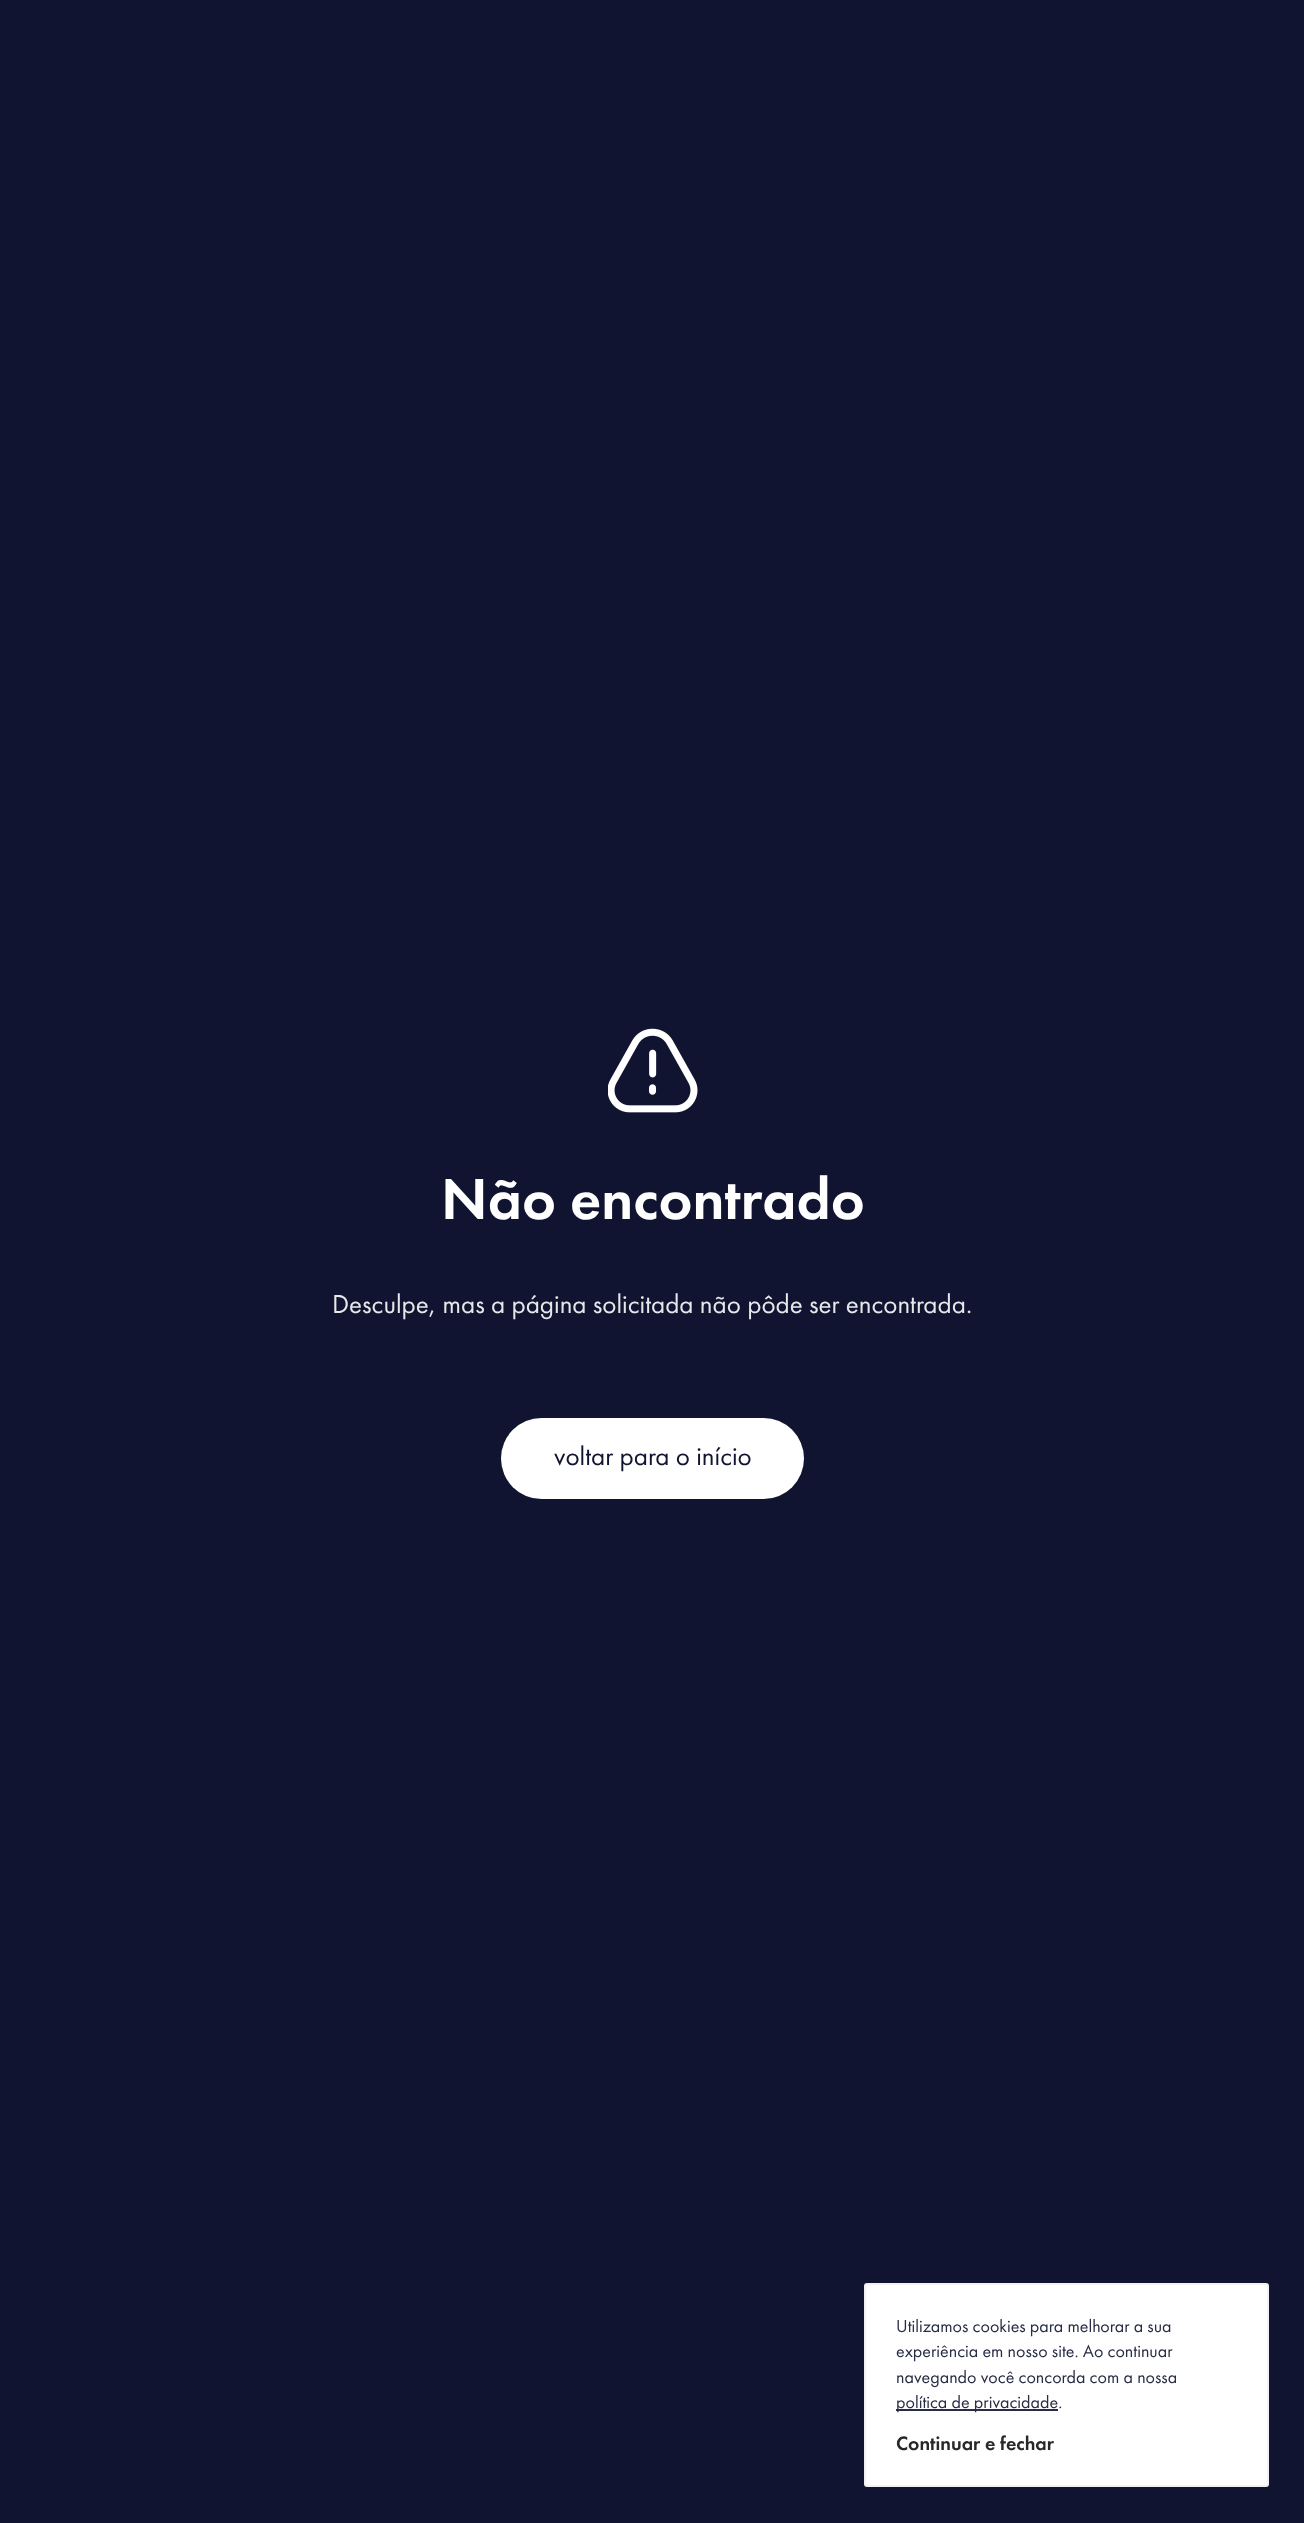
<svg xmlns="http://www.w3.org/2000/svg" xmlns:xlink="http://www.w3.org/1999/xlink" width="1304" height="2523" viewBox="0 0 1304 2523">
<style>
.cls-1{font:500 60px Futura PT;fill:#ffffff}
.cls-2{font:27px Futura PT;fill:#e7e8ea}
.cls-3{font:27px Futura PT;fill:#101430}
.cls-4{font:18px Futura PT;fill:#282c45}
.cls-5{font:500 20px Futura PT;fill:#282828}
</style>
<rect width="100%" height="100%" fill="#101430"/>
<image xlink:href="image0.png" x="608" y="1028" width="90" height="85"/>
<rect fill="#ffffff" x="501" y="1418" width="303" height="81" rx="40.5"/>
<rect fill="#ffffff" x="864" y="2283" width="405" height="204" rx="3"/>
<rect fill="none" stroke="#000000" stroke-opacity="0.05" stroke-width="2" x="865" y="2284" width="403" height="202"/>
<rect fill="#282c45" x="896" y="2409" width="162" height="2"/>
<text class="cls-1" x="441" y="1219">Não encontrado</text>
<text class="cls-2" x="332" y="1313">Desculpe, mas a página solicitada não pôde ser encontrada.</text>
<text class="cls-3" x="554" y="1465">voltar para o início</text>
<text class="cls-4"><tspan x="896" y="2332">Utilizamos cookies para melhorar a sua</tspan><tspan x="896" y="2357">experiência em nosso site. Ao continuar</tspan><tspan x="896" y="2383">navegando você concorda com a nossa</tspan><tspan x="896" y="2408">política de privacidade.</tspan></text>
<text class="cls-5" x="896" y="2450">Continuar e fechar</text>
</svg>
